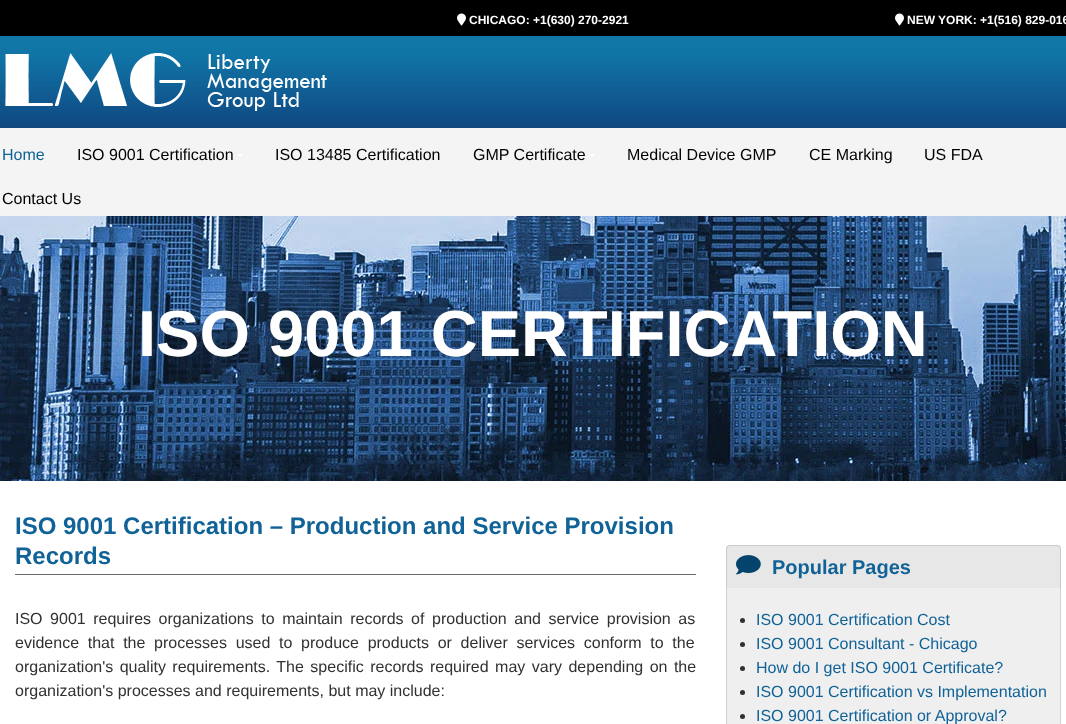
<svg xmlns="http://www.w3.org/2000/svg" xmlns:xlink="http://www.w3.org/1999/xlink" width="1066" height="724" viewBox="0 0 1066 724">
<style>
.cls-1{font:bold 12px Liberation Sans;fill:#ffffff}
.cls-2{font:16px Liberation Sans;fill:#106297}
.cls-3{font:16px Liberation Sans;fill:#000000}
.cls-4{font:bold 65px Liberation Sans;fill:#ffffff}
.cls-5{font:bold 24px Liberation Sans;fill:#106297}
.cls-6{font:16px Liberation Sans;fill:#313131}
.cls-7{font:bold 20px Liberation Sans;fill:#106297}
</style>
<rect width="100%" height="100%" fill="#ffffff"/>
<rect fill="#000000" x="0" y="0" width="1066" height="36"/>
<image xlink:href="image0.png" x="457" y="13" width="9" height="13"/>
<image xlink:href="image0.png" x="895" y="13" width="9" height="13"/>
<image xlink:href="image1.png" x="0" y="36" width="1066" height="92"/>
<image xlink:href="image2.png" x="5" y="53" width="322" height="58"/>
<rect fill="#f4f4f4" x="0" y="128" width="1066" height="88"/>
<path fill="#ffffff" d="M237 154H243L240 157Z"/>
<path fill="#ffffff" d="M589 154H595L592 157Z"/>
<image xlink:href="image3.png" x="0" y="216" width="1066" height="265"/>
<rect fill="#696969" x="15" y="574" width="681" height="1"/>
<rect fill="#efefef" x="726" y="545" width="335" height="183" rx="4"/>
<rect fill="none" stroke="#000000" stroke-opacity="0.12" x="726.5" y="545.5" width="334" height="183" rx="3.5"/>
<rect fill="#000000" fill-opacity="0.03" x="726" y="545" width="335" height="43"/>
<image xlink:href="image4.png" x="736" y="555" width="25" height="20"/>
<circle fill="#313131" cx="742.5" cy="620.5" r="2.5"/>
<circle fill="#313131" cx="742.5" cy="644.5" r="2.5"/>
<circle fill="#313131" cx="742.5" cy="668.5" r="2.5"/>
<circle fill="#313131" cx="742.5" cy="692.5" r="2.5"/>
<circle fill="#313131" cx="742.5" cy="716.5" r="2.5"/>
<text class="cls-1" x="469" y="24">CHICAGO: +1(630) 270-2921</text>
<text class="cls-1" x="907" y="24">NEW YORK: +1(516) 829-016</text>
<text class="cls-2" x="2" y="160">Home</text>
<text class="cls-3" x="77" y="160">ISO 9001 Certification</text>
<text class="cls-3" x="275" y="160">ISO 13485 Certification</text>
<text class="cls-3" x="473" y="160">GMP Certificate</text>
<text class="cls-3" x="627" y="160">Medical Device GMP</text>
<text class="cls-3" x="809" y="160">CE Marking</text>
<text class="cls-3" x="924" y="160">US FDA</text>
<text class="cls-3" x="2" y="204">Contact Us</text>
<text class="cls-4" x="138" y="356">ISO 9001 CERTIFICATION</text>
<text class="cls-5"><tspan x="15" y="534">ISO 9001 Certification – Production and Service Provision</tspan><tspan x="15" y="564">Records</tspan></text>
<text class="cls-6"><tspan x="15" y="624" word-spacing="3.1">ISO 9001 requires organizations to maintain records of production and service provision as</tspan><tspan x="15" y="648" word-spacing="4.25">evidence that the processes used to produce products or deliver services conform to the</tspan><tspan x="15" y="672" word-spacing="2">organization's quality requirements. The specific records required may vary depending on the</tspan><tspan x="15" y="696">organization's processes and requirements, but may include:</tspan></text>
<text class="cls-7" x="772" y="574">Popular Pages</text>
<text class="cls-2"><tspan x="756" y="625">ISO 9001 Certification Cost</tspan><tspan x="756" y="649">ISO 9001 Consultant - Chicago</tspan><tspan x="756" y="673">How do I get ISO 9001 Certificate?</tspan><tspan x="756" y="697">ISO 9001 Certification vs Implementation</tspan><tspan x="756" y="721">ISO 9001 Certification or Approval?</tspan></text>
</svg>
